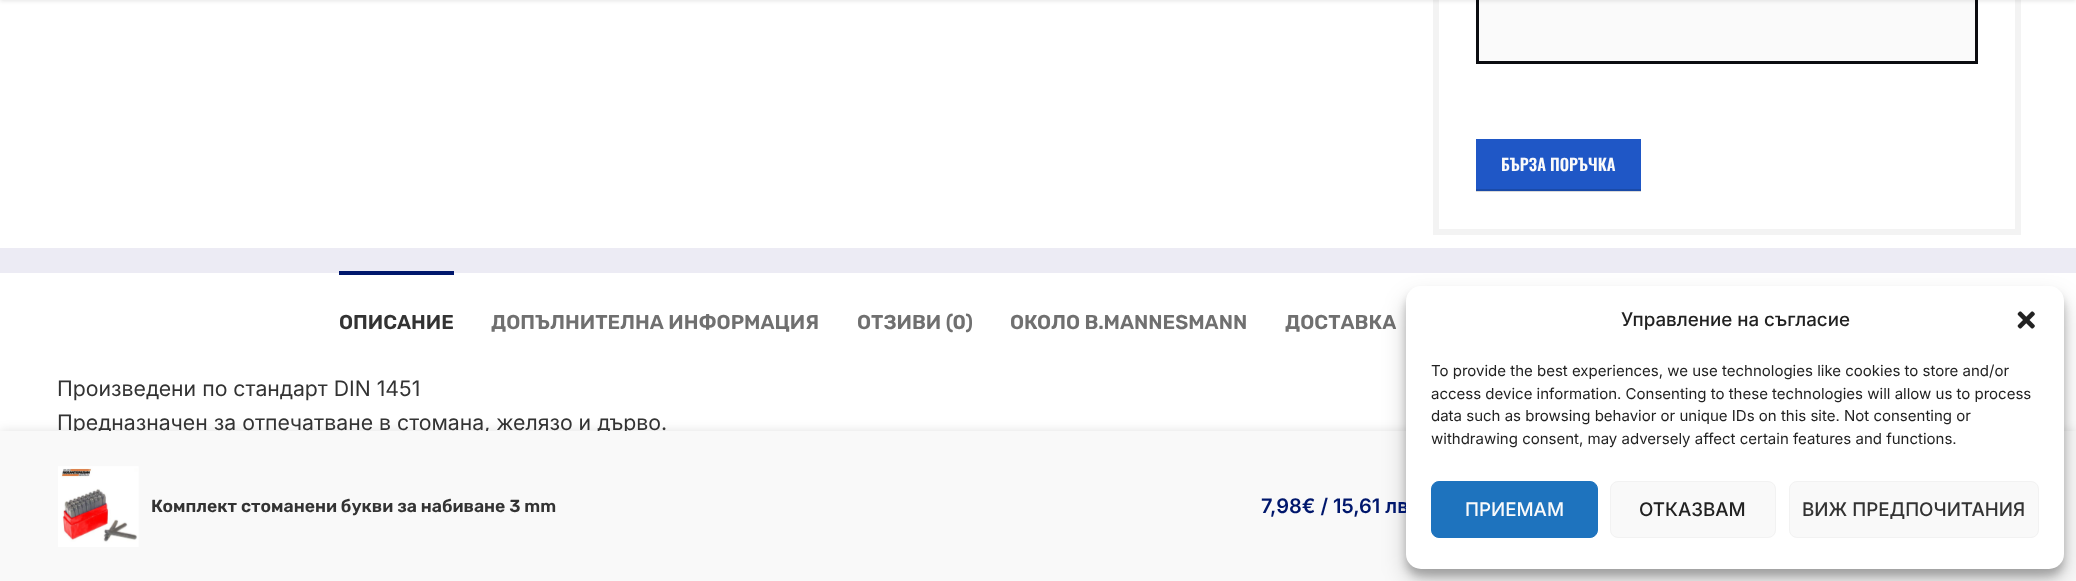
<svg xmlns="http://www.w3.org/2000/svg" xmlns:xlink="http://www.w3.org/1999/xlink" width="2076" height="581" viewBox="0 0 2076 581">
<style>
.cls-1{font:600 16.25px Oswald;fill:#fafafa}
.cls-2{font:600 20px Rubik;fill:#333333}
.cls-3{font:600 20px Rubik;fill:#707070}
.cls-4{font:21.25px Inter;fill:#333333}
.cls-5{font:600 17.5px Rubik;fill:#333333}
.cls-6{font:600 20px Inter;fill:#00176c}
.cls-7{font:500 18.75px Inter;fill:#333333}
.cls-8{font:500 18.75px Inter;fill:#222222}
.cls-9{font:500 18.75px Inter;fill:#fafafa}
.cls-10{font:15px Inter;fill:#222222}
</style>
<rect width="100%" height="100%" fill="#ecebf4"/>
<rect fill="#ffffff" x="0" y="0" width="2076" height="248"/>
<rect fill="#d9d9d9" x="1476" y="191" width="165" height="1"/>
<rect fill="none" stroke="#f3f3f3" stroke-width="6" x="1436" y="-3" width="582" height="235"/>
<rect fill="#fafafa" stroke="#0b0c10" stroke-width="3" x="1477.5" y="-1.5" width="499" height="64"/>
<rect fill="#000000" fill-opacity="0.1" filter="blur(2px)" x="0" y="-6" width="2076" height="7"/>
<rect fill="#1f57c6" x="1476" y="139" width="165" height="50"/>
<rect fill="#1a4aa8" x="1476" y="189" width="165" height="2"/>
<rect fill="#ffffff" x="0" y="273" width="2076" height="158"/>
<rect fill="#00176c" x="339" y="271" width="115" height="4"/>
<rect fill="#000000" fill-opacity="0.12" filter="blur(5.5px)" x="0" y="431" width="2076" height="150"/>
<text class="cls-1" x="1501" y="171">БЪРЗА ПОРЪЧКА</text>
<text class="cls-2" x="339" y="329">ОПИСАНИЕ</text>
<text class="cls-3" x="491" y="329">ДОПЪЛНИТЕЛНА ИНФОРМАЦИЯ</text>
<text class="cls-3" x="857" y="329">ОТЗИВИ (0)</text>
<text class="cls-3" x="1010" y="329">ОКОЛО B.MANNESMANN</text>
<text class="cls-3" x="1285" y="329">ДОСТАВКА</text>
<text class="cls-4"><tspan x="57" y="396">Произведени по стандарт DIN 1451</tspan><tspan x="57" y="430">Предназначен за отпечатване в стомана, желязо и дърво.</tspan></text>
<rect fill="#f9f9f9" x="0" y="431" width="2076" height="150"/>
<rect fill="#000000" fill-opacity="0.19" filter="blur(12.5px)" x="1406" y="299" width="658" height="282" rx="15"/>
<rect fill="#000000" fill-opacity="0.23" filter="blur(4px)" x="1406" y="294" width="658" height="282" rx="15"/>
<image xlink:href="image1.png" x="58" y="466" width="81" height="81"/>
<text class="cls-5" x="151" y="512">Комплект стоманени букви за набиване 3 mm</text>
<text class="cls-6" x="1261" y="513">7,98€ / 15,61 лв</text>
<rect fill="#ffffff" x="1406" y="286" width="658" height="283" rx="15"/>
<rect fill="#f9f9f9" stroke="#f2f2f2" x="1789.5" y="481.5" width="249" height="56" rx="7.5"/>
<text class="cls-7" x="1802" y="516">ВИЖ ПРЕДПОЧИТАНИЯ</text>
<rect fill="#f9f9f9" stroke="#f2f2f2" x="1610.5" y="481.5" width="165" height="56" rx="7.5"/>
<text class="cls-8" x="1639" y="516">ОТКАЗВАМ</text>
<rect fill="#1e73be" stroke="#1e73be" x="1431.5" y="481.5" width="166" height="56" rx="7.5"/>
<text class="cls-9" x="1465" y="516">ПРИЕМАМ</text>
<text class="cls-10" x="1431" y="444">withdrawing consent, may adversely affect certain features and functions.</text>
<text class="cls-10" x="1431" y="421">data such as browsing behavior or unique IDs on this site. Not consenting or</text>
<text class="cls-10" x="1431" y="399">access device information. Consenting to these technologies will allow us to process</text>
<text class="cls-10" x="1431" y="376">To provide the best experiences, we use technologies like cookies to store and/or</text>
<image xlink:href="image0.png" x="2017" y="311" width="18" height="18"/>
<text class="cls-8" x="1621" y="326">Управление на съгласие</text>
</svg>
